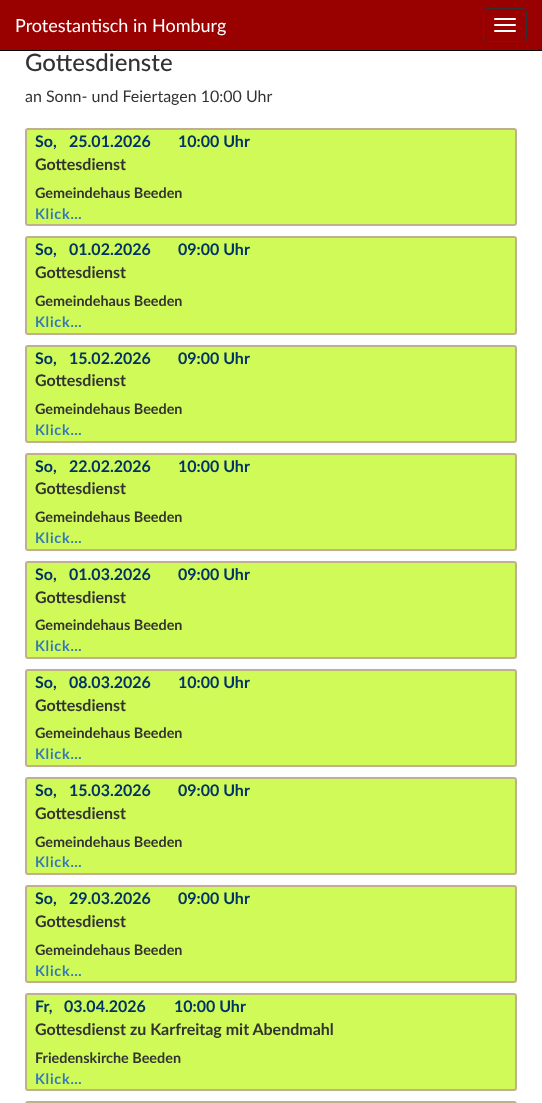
<svg xmlns="http://www.w3.org/2000/svg" xmlns:xlink="http://www.w3.org/1999/xlink" width="542" height="1103" viewBox="0 0 542 1103">
<style>
.cls-1{font:18px Lato;fill:#ffffff}
.cls-2{font:500 24px Lato;fill:#333333}
.cls-3{font:16px Lato;fill:#333333}
.cls-4{font:bold 16px Lato;fill:#003366}
.cls-5{font:bold 16px Lato;fill:#333333}
.cls-6{font:bold 14.4px Lato;fill:#333333}
.cls-7{font:bold 14.4px Lato;letter-spacing:0.75px;fill:#337ab7}
</style>
<rect width="100%" height="100%" fill="#ffffff"/>
<rect fill="#990000" x="0" y="0" width="542" height="50"/>
<rect fill="#080808" x="0" y="50" width="542" height="1"/>
<rect fill="none" stroke="#333333" x="483.5" y="8.5" width="43" height="33" rx="3.5"/>
<rect fill="#ffffff" x="494" y="18" width="22" height="2" rx="1"/>
<rect fill="#ffffff" x="494" y="24" width="22" height="2" rx="1"/>
<rect fill="#ffffff" x="494" y="30" width="22" height="2" rx="1"/>
<rect fill="#d0fa58" stroke="#c0b090" stroke-width="2" x="26" y="129" width="490" height="96" rx="2"/>
<rect fill="#d0fa58" stroke="#c0b090" stroke-width="2" x="26" y="237" width="490" height="97" rx="2"/>
<rect fill="#d0fa58" stroke="#c0b090" stroke-width="2" x="26" y="346" width="490" height="96" rx="2"/>
<rect fill="#d0fa58" stroke="#c0b090" stroke-width="2" x="26" y="454" width="490" height="96" rx="2"/>
<rect fill="#d0fa58" stroke="#c0b090" stroke-width="2" x="26" y="562" width="490" height="96" rx="2"/>
<rect fill="#d0fa58" stroke="#c0b090" stroke-width="2" x="26" y="670" width="490" height="96" rx="2"/>
<rect fill="#d0fa58" stroke="#c0b090" stroke-width="2" x="26" y="778" width="490" height="96" rx="2"/>
<rect fill="#d0fa58" stroke="#c0b090" stroke-width="2" x="26" y="886" width="490" height="96" rx="2"/>
<rect fill="#d0fa58" stroke="#c0b090" stroke-width="2" x="26" y="994" width="490" height="96" rx="2"/>
<rect fill="none" stroke="#c0b090" stroke-width="2" x="26" y="1102" width="490" height="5" rx="2"/>
<text class="cls-1" x="15" y="32">Protestantisch in Homburg</text>
<text class="cls-2" x="25" y="71">Gottesdienste</text>
<text class="cls-3" x="25" y="102">an Sonn- und Feiertagen 10:00 Uhr</text>
<text class="cls-4" x="35" y="147">So,</text>
<text class="cls-4" x="69" y="147">25.01.2026</text>
<text class="cls-4" x="178" y="147">10:00 Uhr</text>
<text class="cls-5" x="35" y="170">Gottesdienst</text>
<text class="cls-6" x="35" y="198">Gemeindehaus Beeden</text>
<text class="cls-7" x="35" y="219">Klick…</text>
<text class="cls-4" x="35" y="255">So,</text>
<text class="cls-4" x="69" y="255">01.02.2026</text>
<text class="cls-4" x="178" y="255">09:00 Uhr</text>
<text class="cls-5" x="35" y="278">Gottesdienst</text>
<text class="cls-6" x="35" y="306">Gemeindehaus Beeden</text>
<text class="cls-7" x="35" y="327">Klick…</text>
<text class="cls-4" x="35" y="364">So,</text>
<text class="cls-4" x="69" y="364">15.02.2026</text>
<text class="cls-4" x="178" y="364">09:00 Uhr</text>
<text class="cls-5" x="35" y="386">Gottesdienst</text>
<text class="cls-6" x="35" y="414">Gemeindehaus Beeden</text>
<text class="cls-7" x="35" y="435">Klick…</text>
<text class="cls-4" x="35" y="472">So,</text>
<text class="cls-4" x="69" y="472">22.02.2026</text>
<text class="cls-4" x="178" y="472">10:00 Uhr</text>
<text class="cls-5" x="35" y="494">Gottesdienst</text>
<text class="cls-6" x="35" y="522">Gemeindehaus Beeden</text>
<text class="cls-7" x="35" y="543">Klick…</text>
<text class="cls-4" x="35" y="580">So,</text>
<text class="cls-4" x="69" y="580">01.03.2026</text>
<text class="cls-4" x="178" y="580">09:00 Uhr</text>
<text class="cls-5" x="35" y="603">Gottesdienst</text>
<text class="cls-6" x="35" y="630">Gemeindehaus Beeden</text>
<text class="cls-7" x="35" y="651">Klick…</text>
<text class="cls-4" x="35" y="688">So,</text>
<text class="cls-4" x="69" y="688">08.03.2026</text>
<text class="cls-4" x="178" y="688">10:00 Uhr</text>
<text class="cls-5" x="35" y="711">Gottesdienst</text>
<text class="cls-6" x="35" y="738">Gemeindehaus Beeden</text>
<text class="cls-7" x="35" y="759">Klick…</text>
<text class="cls-4" x="35" y="796">So,</text>
<text class="cls-4" x="69" y="796">15.03.2026</text>
<text class="cls-4" x="178" y="796">09:00 Uhr</text>
<text class="cls-5" x="35" y="819">Gottesdienst</text>
<text class="cls-6" x="35" y="847">Gemeindehaus Beeden</text>
<text class="cls-7" x="35" y="867">Klick…</text>
<text class="cls-4" x="35" y="904">So,</text>
<text class="cls-4" x="69" y="904">29.03.2026</text>
<text class="cls-4" x="178" y="904">09:00 Uhr</text>
<text class="cls-5" x="35" y="927">Gottesdienst</text>
<text class="cls-6" x="35" y="955">Gemeindehaus Beeden</text>
<text class="cls-7" x="35" y="976">Klick…</text>
<text class="cls-4" x="35" y="1012">Fr,</text>
<text class="cls-4" x="64" y="1012">03.04.2026</text>
<text class="cls-4" x="174" y="1012">10:00 Uhr</text>
<text class="cls-5" x="35" y="1035">Gottesdienst zu Karfreitag mit Abendmahl</text>
<text class="cls-6" x="35" y="1063">Friedenskirche Beeden</text>
<text class="cls-7" x="35" y="1084">Klick…</text>
</svg>
